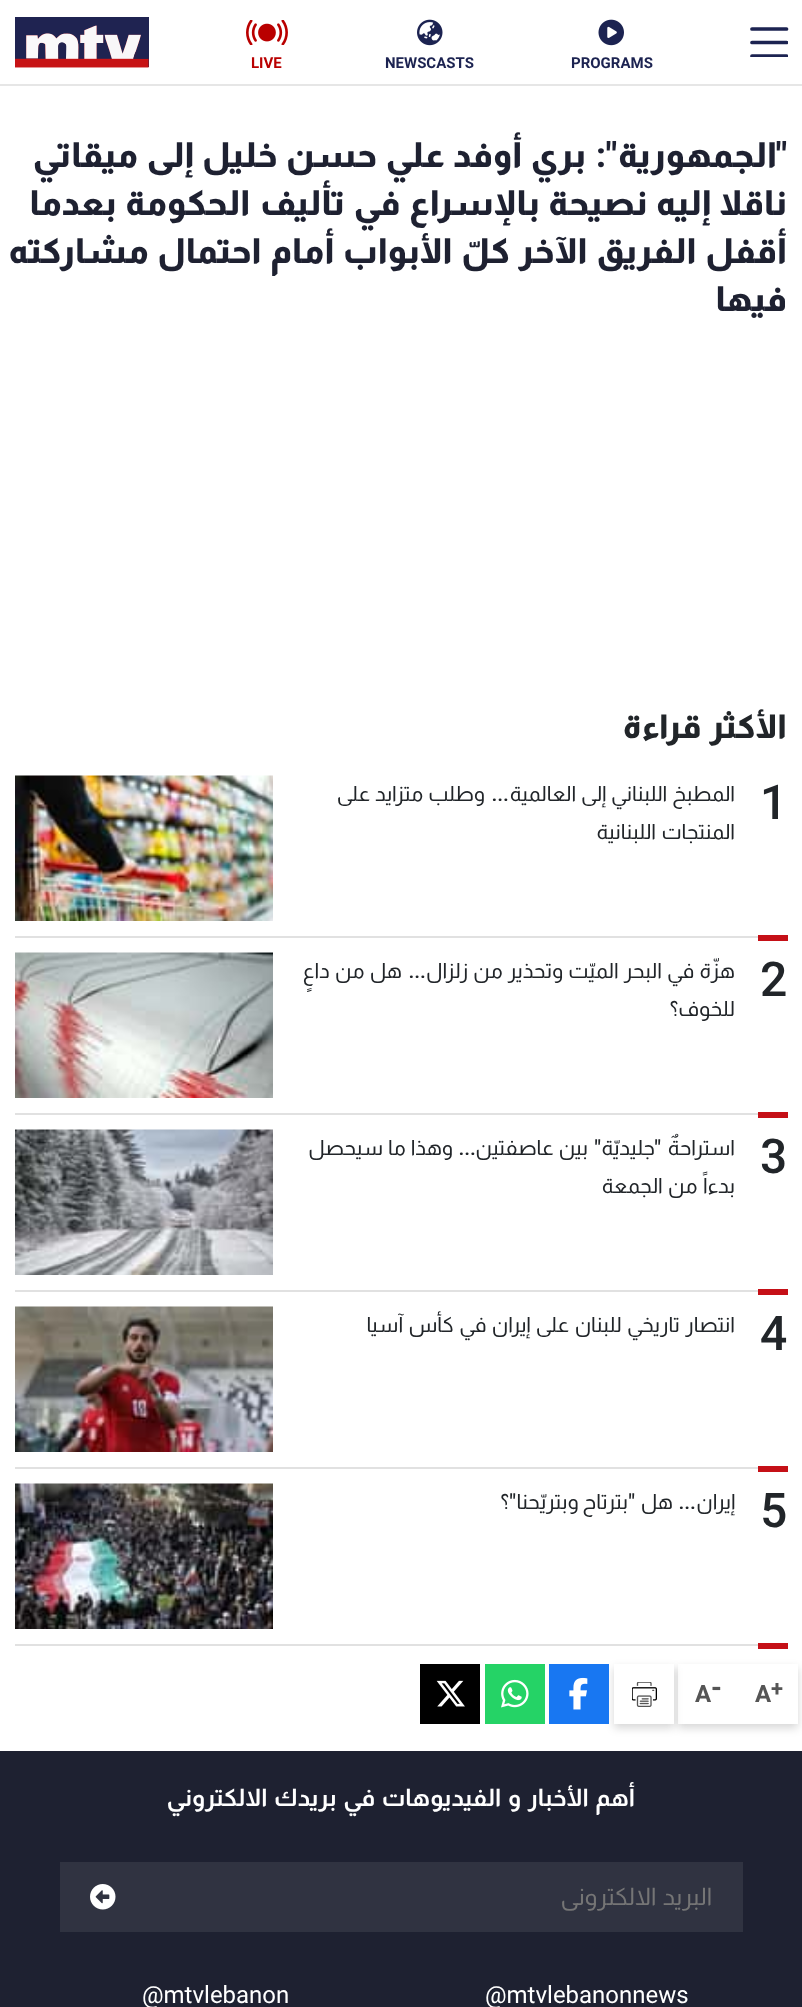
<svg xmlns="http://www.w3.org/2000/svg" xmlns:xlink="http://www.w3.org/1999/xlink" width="802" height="2007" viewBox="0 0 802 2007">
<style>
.cls-1{font:bold 15px Roboto;fill:#1c2351}
.cls-2{font:bold 15px Roboto;fill:#b90000}
.cls-3{font:800 34.5px Roboto;direction:rtl;fill:#1e2131}
.cls-4{font:800 34.5px Almarai;direction:rtl;fill:#1e2131}
.cls-5{font:bold 22px Roboto;fill:#555555}
.cls-6{font:bold 24px Roboto;fill:#555555}
.cls-7{font:bold 28px Roboto;fill:#555555}
.cls-8{font:800 33px Almarai;direction:rtl;fill:#212529}
.cls-9{font:500 48px Roboto;fill:#212529}
.cls-10{font:21px Almarai;direction:rtl;fill:#212529}
.cls-11{font:500 21px Roboto;direction:rtl;fill:#212529}
.cls-12{font:bold 24px Almarai;direction:rtl;fill:#ffffff}
.cls-13{font:24px Almarai;direction:rtl;fill:#757575}
.cls-14{font:24px Roboto;fill:#ffffff}
</style>
<defs>
<clipPath id="clip1"><rect x="750" y="27" width="38" height="30"/></clipPath>
<clipPath id="clip2"><rect x="135" y="1883" width="578" height="28"/></clipPath>
</defs>
<rect width="100%" height="100%" fill="#ffffff"/>
<rect fill="#e6e6e6" x="0" y="84" width="802" height="2"/>
<path fill="none" stroke="#1c2351" stroke-width="3.7" stroke-linecap="round" d="M752 29H786.5"/>
<g clip-path="url(#clip1)">
<path fill="none" stroke="#1c2351" stroke-width="3.7" stroke-linecap="round" d="M752 42.5H786.5M752 56H786.5"/>
</g>
<image xlink:href="image0.png" x="15" y="17" width="134" height="51"/>
<image xlink:href="image1.png" x="598" y="19" width="26" height="27"/>
<image xlink:href="image2.png" x="417" y="19" width="26" height="27"/>
<image xlink:href="image3.png" x="246" y="20" width="42" height="25"/>
<rect fill="#000000" fill-opacity="0.16" filter="blur(4.5px)" x="678" y="1668" width="120" height="60"/>
<rect fill="#ffffff" x="678" y="1664" width="120" height="60"/>
<rect fill="#000000" fill-opacity="0.16" filter="blur(4.5px)" x="614" y="1668" width="60" height="60"/>
<rect fill="#ffffff" x="614" y="1664" width="60" height="60"/>
<image xlink:href="image4.png" x="632" y="1682" width="25" height="25"/>
<rect fill="#1877f2" x="549" y="1664" width="60" height="60"/>
<image xlink:href="image5.png" x="569" y="1677" width="19" height="33"/>
<rect fill="#25d366" x="485" y="1664" width="60" height="60"/>
<image xlink:href="image6.png" x="501" y="1679" width="28" height="29"/>
<rect fill="#000000" x="420" y="1664" width="60" height="60"/>
<image xlink:href="image7.png" x="436" y="1680" width="29" height="27"/>
<rect fill="#e1e1e1" x="15" y="936" width="743" height="2"/>
<image xlink:href="image8.png" x="15" y="775" width="258" height="146"/>
<rect fill="#c51017" x="758" y="935" width="30" height="6"/>
<rect fill="#e1e1e1" x="15" y="1113" width="743" height="2"/>
<image xlink:href="image9.png" x="15" y="952" width="258" height="146"/>
<rect fill="#c51017" x="758" y="1112" width="30" height="6"/>
<rect fill="#e1e1e1" x="15" y="1290" width="743" height="2"/>
<image xlink:href="image10.png" x="15" y="1129" width="258" height="146"/>
<rect fill="#c51017" x="758" y="1289" width="30" height="6"/>
<rect fill="#e1e1e1" x="15" y="1467" width="743" height="2"/>
<image xlink:href="image11.png" x="15" y="1306" width="258" height="146"/>
<rect fill="#c51017" x="758" y="1466" width="30" height="6"/>
<rect fill="#e1e1e1" x="15" y="1644" width="743" height="2"/>
<image xlink:href="image12.png" x="15" y="1483" width="258" height="146"/>
<rect fill="#c51017" x="758" y="1643" width="30" height="6"/>
<rect fill="#1e2131" x="0" y="1751" width="802" height="256"/>
<rect fill="#303341" x="60" y="1862" width="683" height="70"/>
<image xlink:href="image13.png" x="90" y="1884" width="26" height="26"/>
<text class="cls-1" x="571" y="68">PROGRAMS</text>
<text class="cls-1" x="385" y="68">NEWSCASTS</text>
<text class="cls-2" x="251" y="68">LIVE</text>
<text class="cls-3" x="787" y="167">"</text>
<text class="cls-4" x="777" y="167">الجمهورية</text>
<text class="cls-3" x="617" y="167">":</text>
<text class="cls-4" x="586" y="167" word-spacing="2">بري أوفد علي حسن خليل إلى ميقاتي</text>
<text class="cls-4"><tspan x="787" y="215" word-spacing="2.25">ناقلا إليه نصيحة بالإسراع في تأليف الحكومة بعدما</tspan><tspan x="787" y="263" word-spacing="2.25">أقفل الفريق الآخر كلّ الأبواب أمام احتمال مشاركته</tspan><tspan x="787" y="311">فيها</tspan></text>
<text class="cls-5" x="771" y="1696">+</text>
<text class="cls-6" x="755" y="1702">A</text>
<text class="cls-7" x="711" y="1697">-</text>
<text class="cls-6" x="695" y="1702">A</text>
<text class="cls-8" x="787" y="738" word-spacing="2">الأكثر قراءة</text>
<text class="cls-9" x="760" y="819">1</text>
<text class="cls-10" x="735" y="801" word-spacing="1">المطبخ اللبناني إلى العالمية</text>
<text class="cls-11" x="509" y="801">...</text>
<text class="cls-10" x="485" y="801" word-spacing="1">وطلب متزايد على</text>
<text class="cls-10" x="735" y="839" word-spacing="1.5">المنتجات اللبنانية</text>
<text class="cls-9" x="760" y="996">2</text>
<text class="cls-10" x="735" y="978" word-spacing="1.25">هزّة في البحر الميّت وتحذير من زلزال</text>
<text class="cls-11" x="426" y="978">...</text>
<text class="cls-10" x="402" y="978" word-spacing="1.25">هل من داعٍ</text>
<text class="cls-10" x="735" y="1016">للخوف؟</text>
<text class="cls-9" x="760" y="1173">3</text>
<text class="cls-10" x="735" y="1155">استراحةٌ</text>
<text class="cls-11" x="661" y="1155">"</text>
<text class="cls-10" x="655" y="1155">جليديّة</text>
<text class="cls-11" x="601" y="1155">"</text>
<text class="cls-10" x="588" y="1155" word-spacing="1">بين عاصفتين</text>
<text class="cls-10" x="453" y="1155" word-spacing="1">وهذا ما سيحصل</text>
<text class="cls-11" x="476" y="1155">...</text>
<text class="cls-10" x="735" y="1193" word-spacing="1.5">بدءاً من الجمعة</text>
<text class="cls-9" x="760" y="1350">4</text>
<text class="cls-10" x="735" y="1332" word-spacing="1.5">انتصار تاريخي للبنان على إيران في كأس آسيا</text>
<text class="cls-9" x="760" y="1527">5</text>
<text class="cls-10" x="735" y="1509">إيران</text>
<text class="cls-11" x="696" y="1509">...</text>
<text class="cls-10" x="673" y="1509">هل</text>
<text class="cls-11" x="635" y="1509">"</text>
<text class="cls-10" x="628" y="1509">بترتاح وبتريّحنا</text>
<text class="cls-11" x="516" y="1509">"</text>
<text class="cls-10" x="509" y="1509">؟</text>
<text class="cls-12" x="635" y="1806" word-spacing="2.25">أهم الأخبار و الفيديوهات في بريدك الالكتروني</text>
<g clip-path="url(#clip2)">
<text class="cls-13" x="712" y="1905" word-spacing="2">البريد الالكتروني</text>
</g>
<text class="cls-14" x="485" y="2003">@mtvlebanonnews</text>
<text class="cls-14" x="142" y="2003">@mtvlebanon</text>
</svg>
